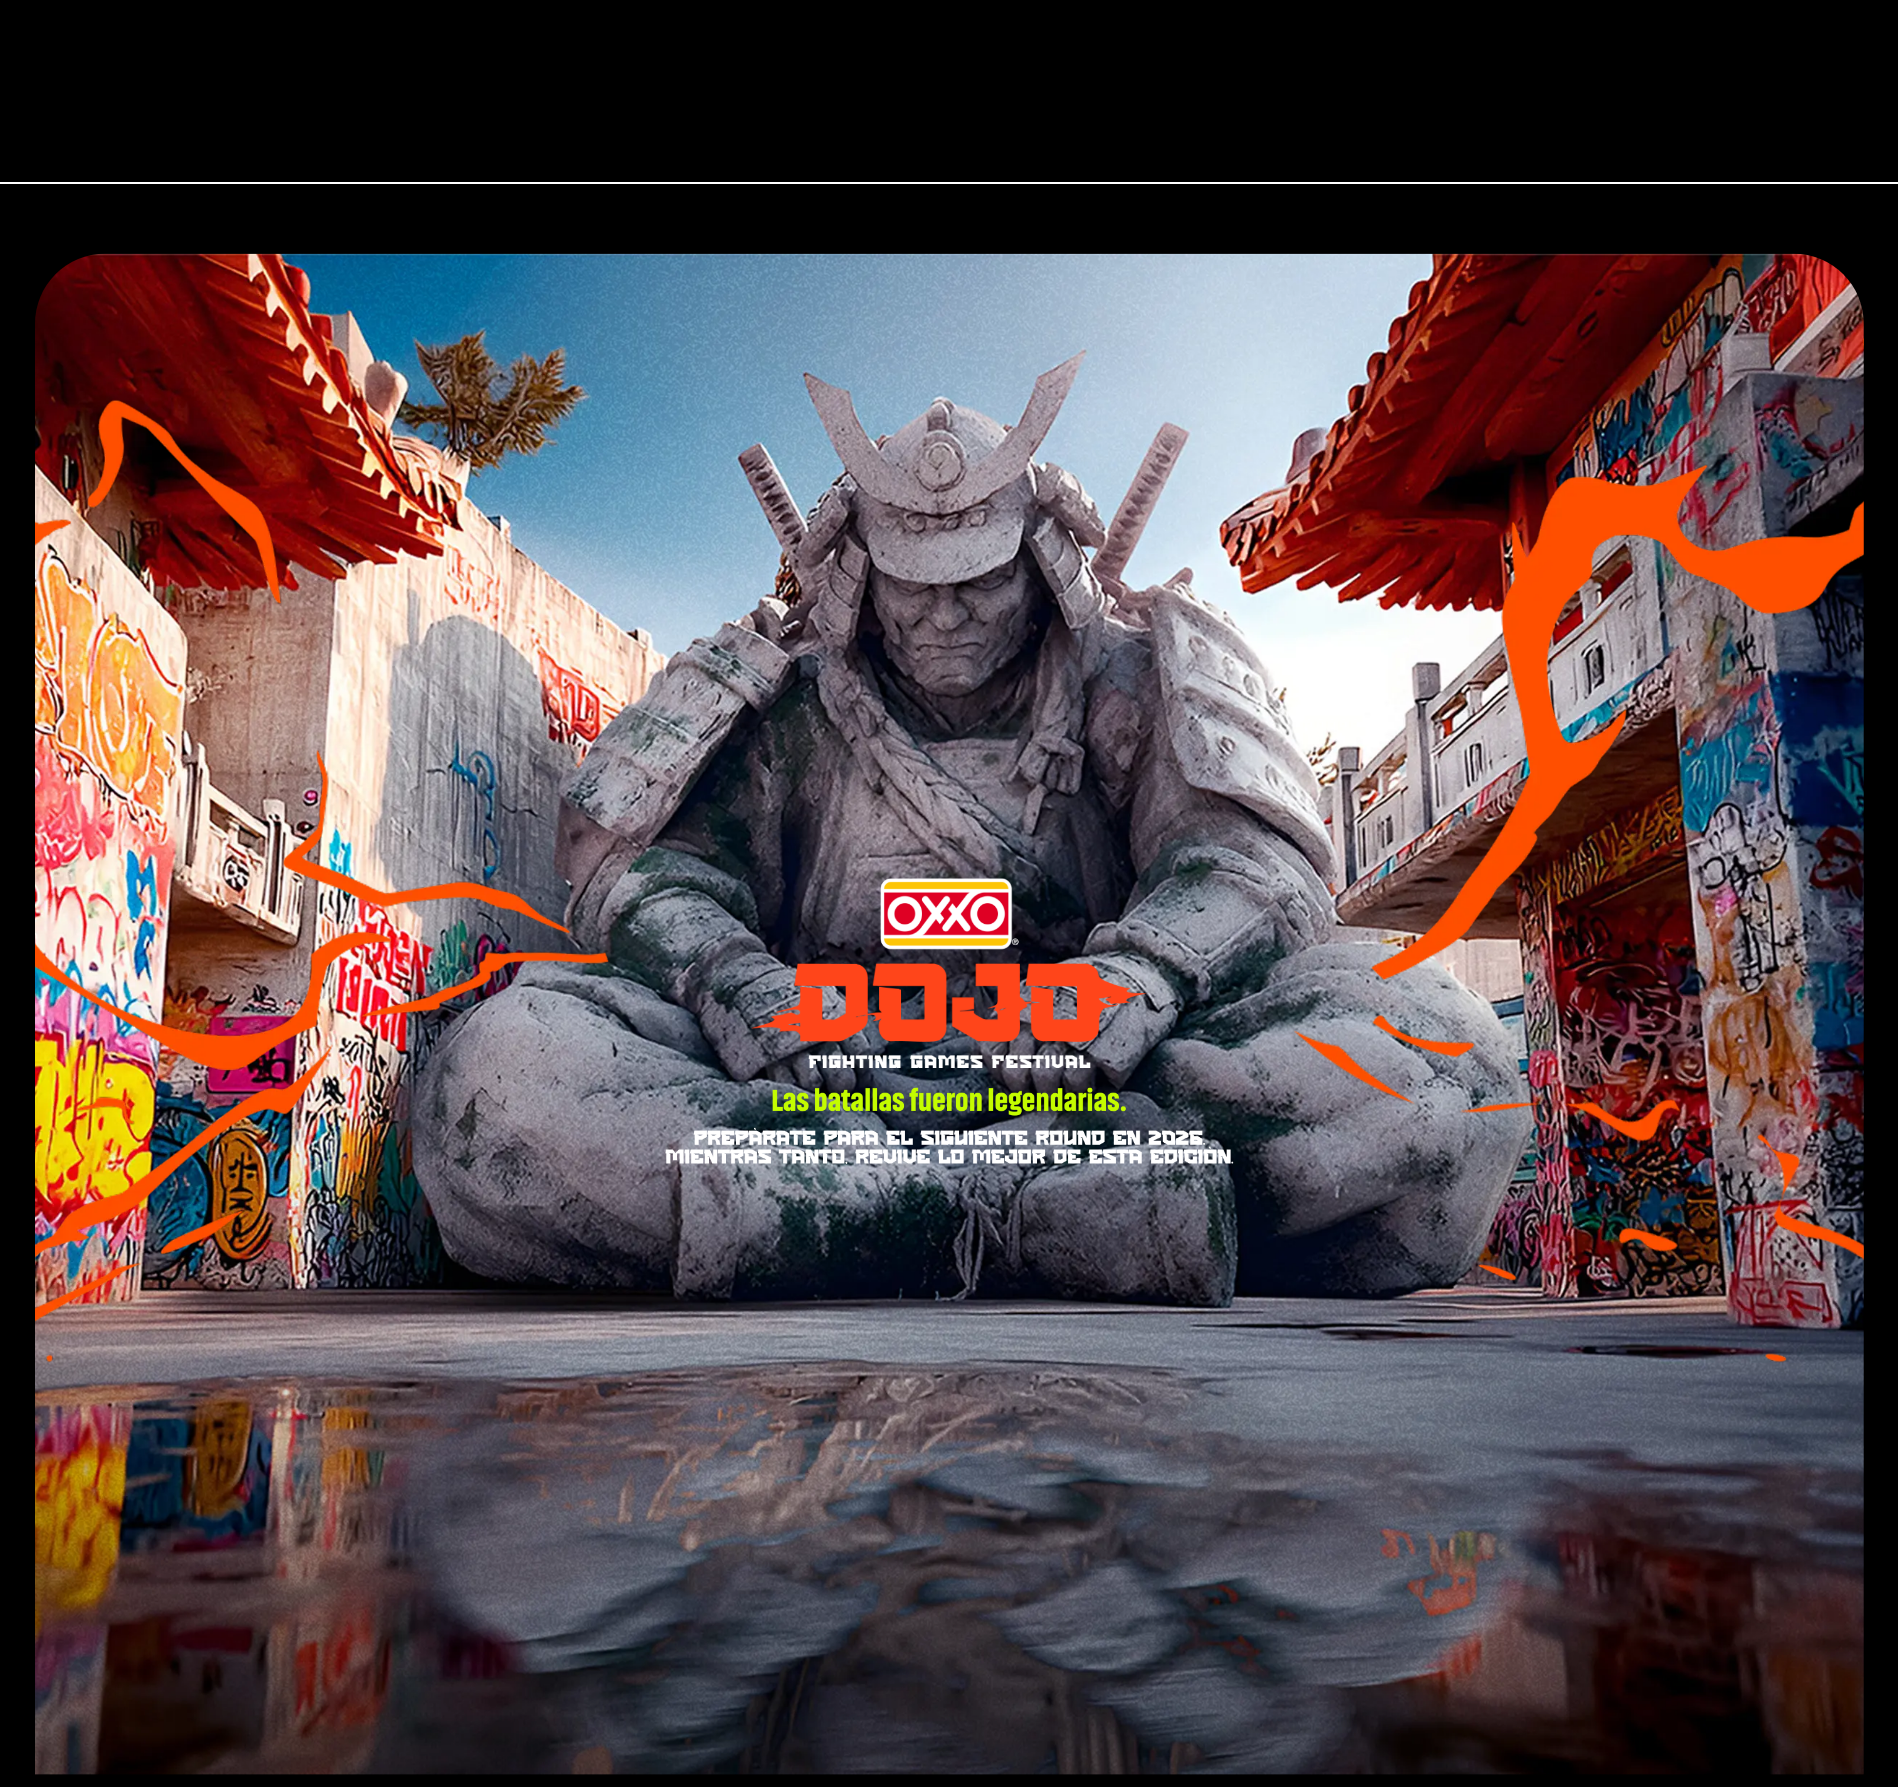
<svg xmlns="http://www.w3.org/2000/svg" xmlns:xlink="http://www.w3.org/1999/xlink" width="1898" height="1787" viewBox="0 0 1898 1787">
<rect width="100%" height="100%" fill="#000000"/>
<rect fill="#ffffff" x="0" y="182" width="1898" height="2"/>
<image xlink:href="image0.png" x="35" y="253" width="1829" height="1522"/>
<image xlink:href="image1.png" x="35" y="338" width="1829" height="1025"/>
<image xlink:href="image2.png" x="665" y="878" width="569" height="286"/>
</svg>
